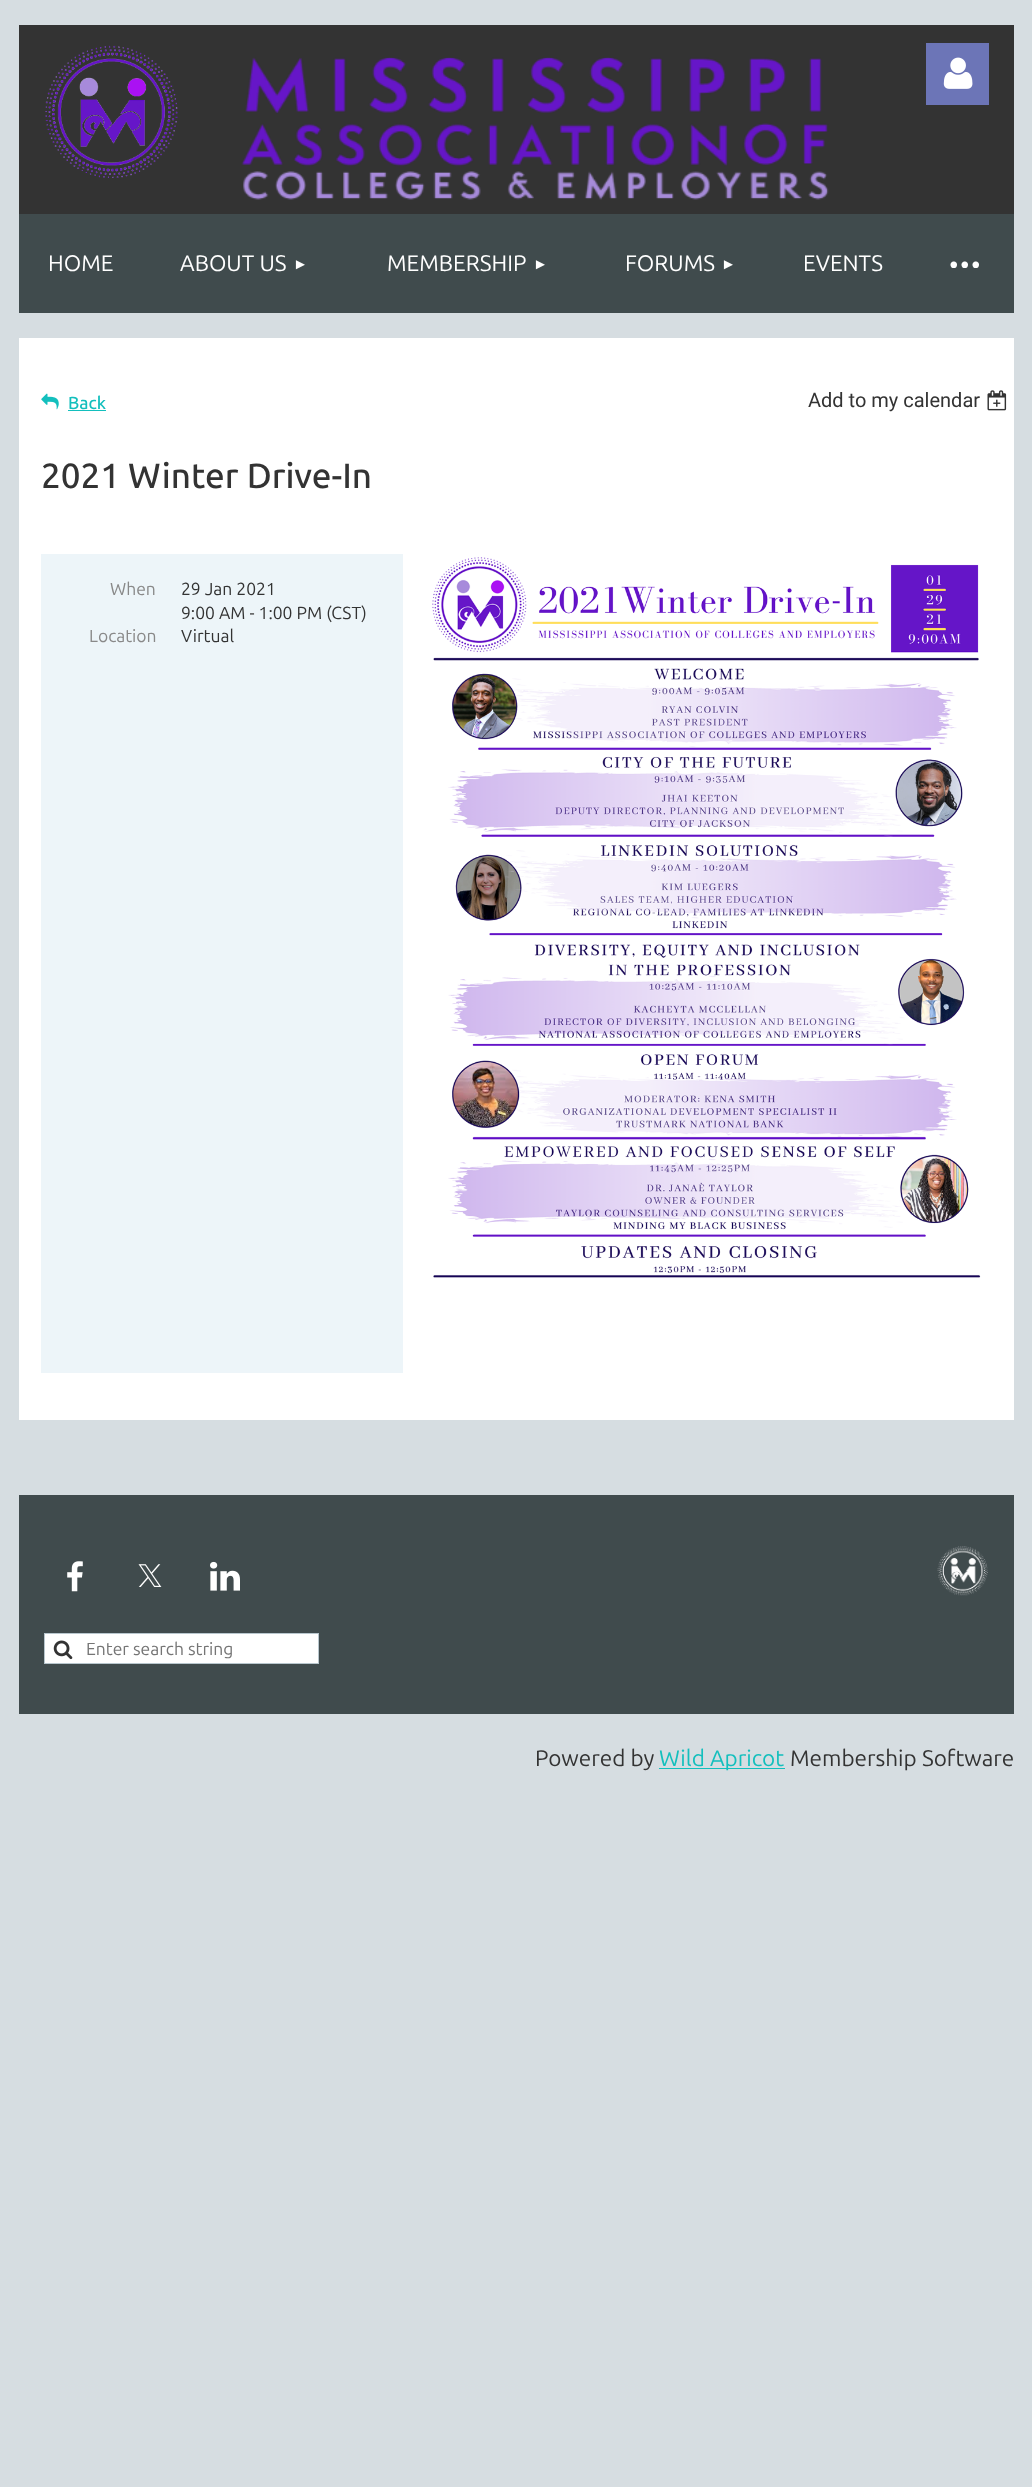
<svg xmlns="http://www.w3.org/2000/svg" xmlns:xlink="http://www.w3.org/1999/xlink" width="1032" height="2487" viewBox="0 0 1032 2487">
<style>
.cls-1{font:22.5px Ubuntu;fill:#ffffff}
.cls-2{font:15px Liberation Sans;fill:#ffffff}
.cls-3{font:55px Ubuntu;letter-spacing:-2.5px;fill:#ffffff}
.cls-4{font:500 17.5px Ubuntu;fill:#13bfbd}
.cls-5{font:20px Roboto;fill:#333333}
.cls-6{font:500 35px Ubuntu;fill:#333333}
.cls-7{font:17.5px Ubuntu;fill:#898989}
.cls-8{font:17.5px Ubuntu;fill:#333333}
.cls-9{font:17.5px Ubuntu;fill:#757575}
.cls-10{font:22.5px Ubuntu;fill:#333333}
.cls-11{font:22.5px Ubuntu;fill:#13bfbd}
</style>
<rect width="100%" height="100%" fill="#d6dde1"/>
<rect fill="#333333" x="19" y="25" width="995" height="189"/>
<image xlink:href="image0.png" x="45" y="45" width="133" height="133"/>
<image xlink:href="image1.png" x="241" y="57" width="588" height="143"/>
<rect fill="#6c75b7" x="926" y="43" width="63" height="62"/>
<image xlink:href="image2.png" x="943" y="57" width="30" height="32"/>
<rect fill="#404b4d" x="19" y="214" width="995" height="99"/>
<rect fill="#ffffff" x="19" y="338" width="995" height="1082"/>
<image xlink:href="image3.png" x="41" y="393" width="18" height="17"/>
<rect fill="#13bfbd" x="68" y="410" width="38" height="1"/>
<image xlink:href="image4.png" x="987" y="390" width="20" height="21"/>
<rect fill="#edf5f9" x="41" y="554" width="362" height="819"/>
<image xlink:href="image5.png" x="432" y="557" width="549" height="721"/>
<rect fill="#404b4d" x="19" y="1495" width="995" height="219"/>
<image xlink:href="image6.png" x="67" y="1561" width="16" height="31"/>
<image xlink:href="image7.png" x="138" y="1564" width="24" height="23"/>
<image xlink:href="image8.png" x="210" y="1561" width="30" height="30"/>
<image xlink:href="image9.png" x="937" y="1546" width="51" height="50"/>
<rect fill="#ffffff" stroke="#b8c6cd" x="44.5" y="1633.5" width="274" height="30"/>
<image xlink:href="image10.png" x="53" y="1640" width="20" height="20"/>
<rect fill="#13bfbd" x="659" y="1768" width="126" height="1"/>
<text class="cls-1" x="48" y="271">HOME</text>
<text class="cls-1" x="180" y="271">ABOUT US</text>
<text class="cls-2" x="293" y="269">►</text>
<text class="cls-1" x="387" y="271">MEMBERSHIP</text>
<text class="cls-2" x="533" y="269">►</text>
<text class="cls-1" x="625" y="271">FORUMS</text>
<text class="cls-2" x="721" y="269">►</text>
<text class="cls-1" x="803" y="271">EVENTS</text>
<text class="cls-3" x="947" y="281">···</text>
<text class="cls-4" x="68" y="409">Back</text>
<text class="cls-5" x="808" y="407">Add to my calendar</text>
<text class="cls-6" x="41" y="488">2021 Winter Drive-In</text>
<text class="cls-7" x="110" y="595">When</text>
<text class="cls-8"><tspan x="181" y="595">29 Jan 2021</tspan><tspan x="181" y="619">9:00 AM - 1:00 PM (CST)</tspan></text>
<text class="cls-7" x="89" y="642">Location</text>
<text class="cls-8" x="181" y="642">Virtual</text>
<text class="cls-9" x="86" y="1655">Enter search string</text>
<text class="cls-10" x="535" y="1766">Powered by</text>
<text class="cls-11" x="659" y="1766">Wild Apricot</text>
<text class="cls-10" x="790" y="1766">Membership Software</text>
</svg>
